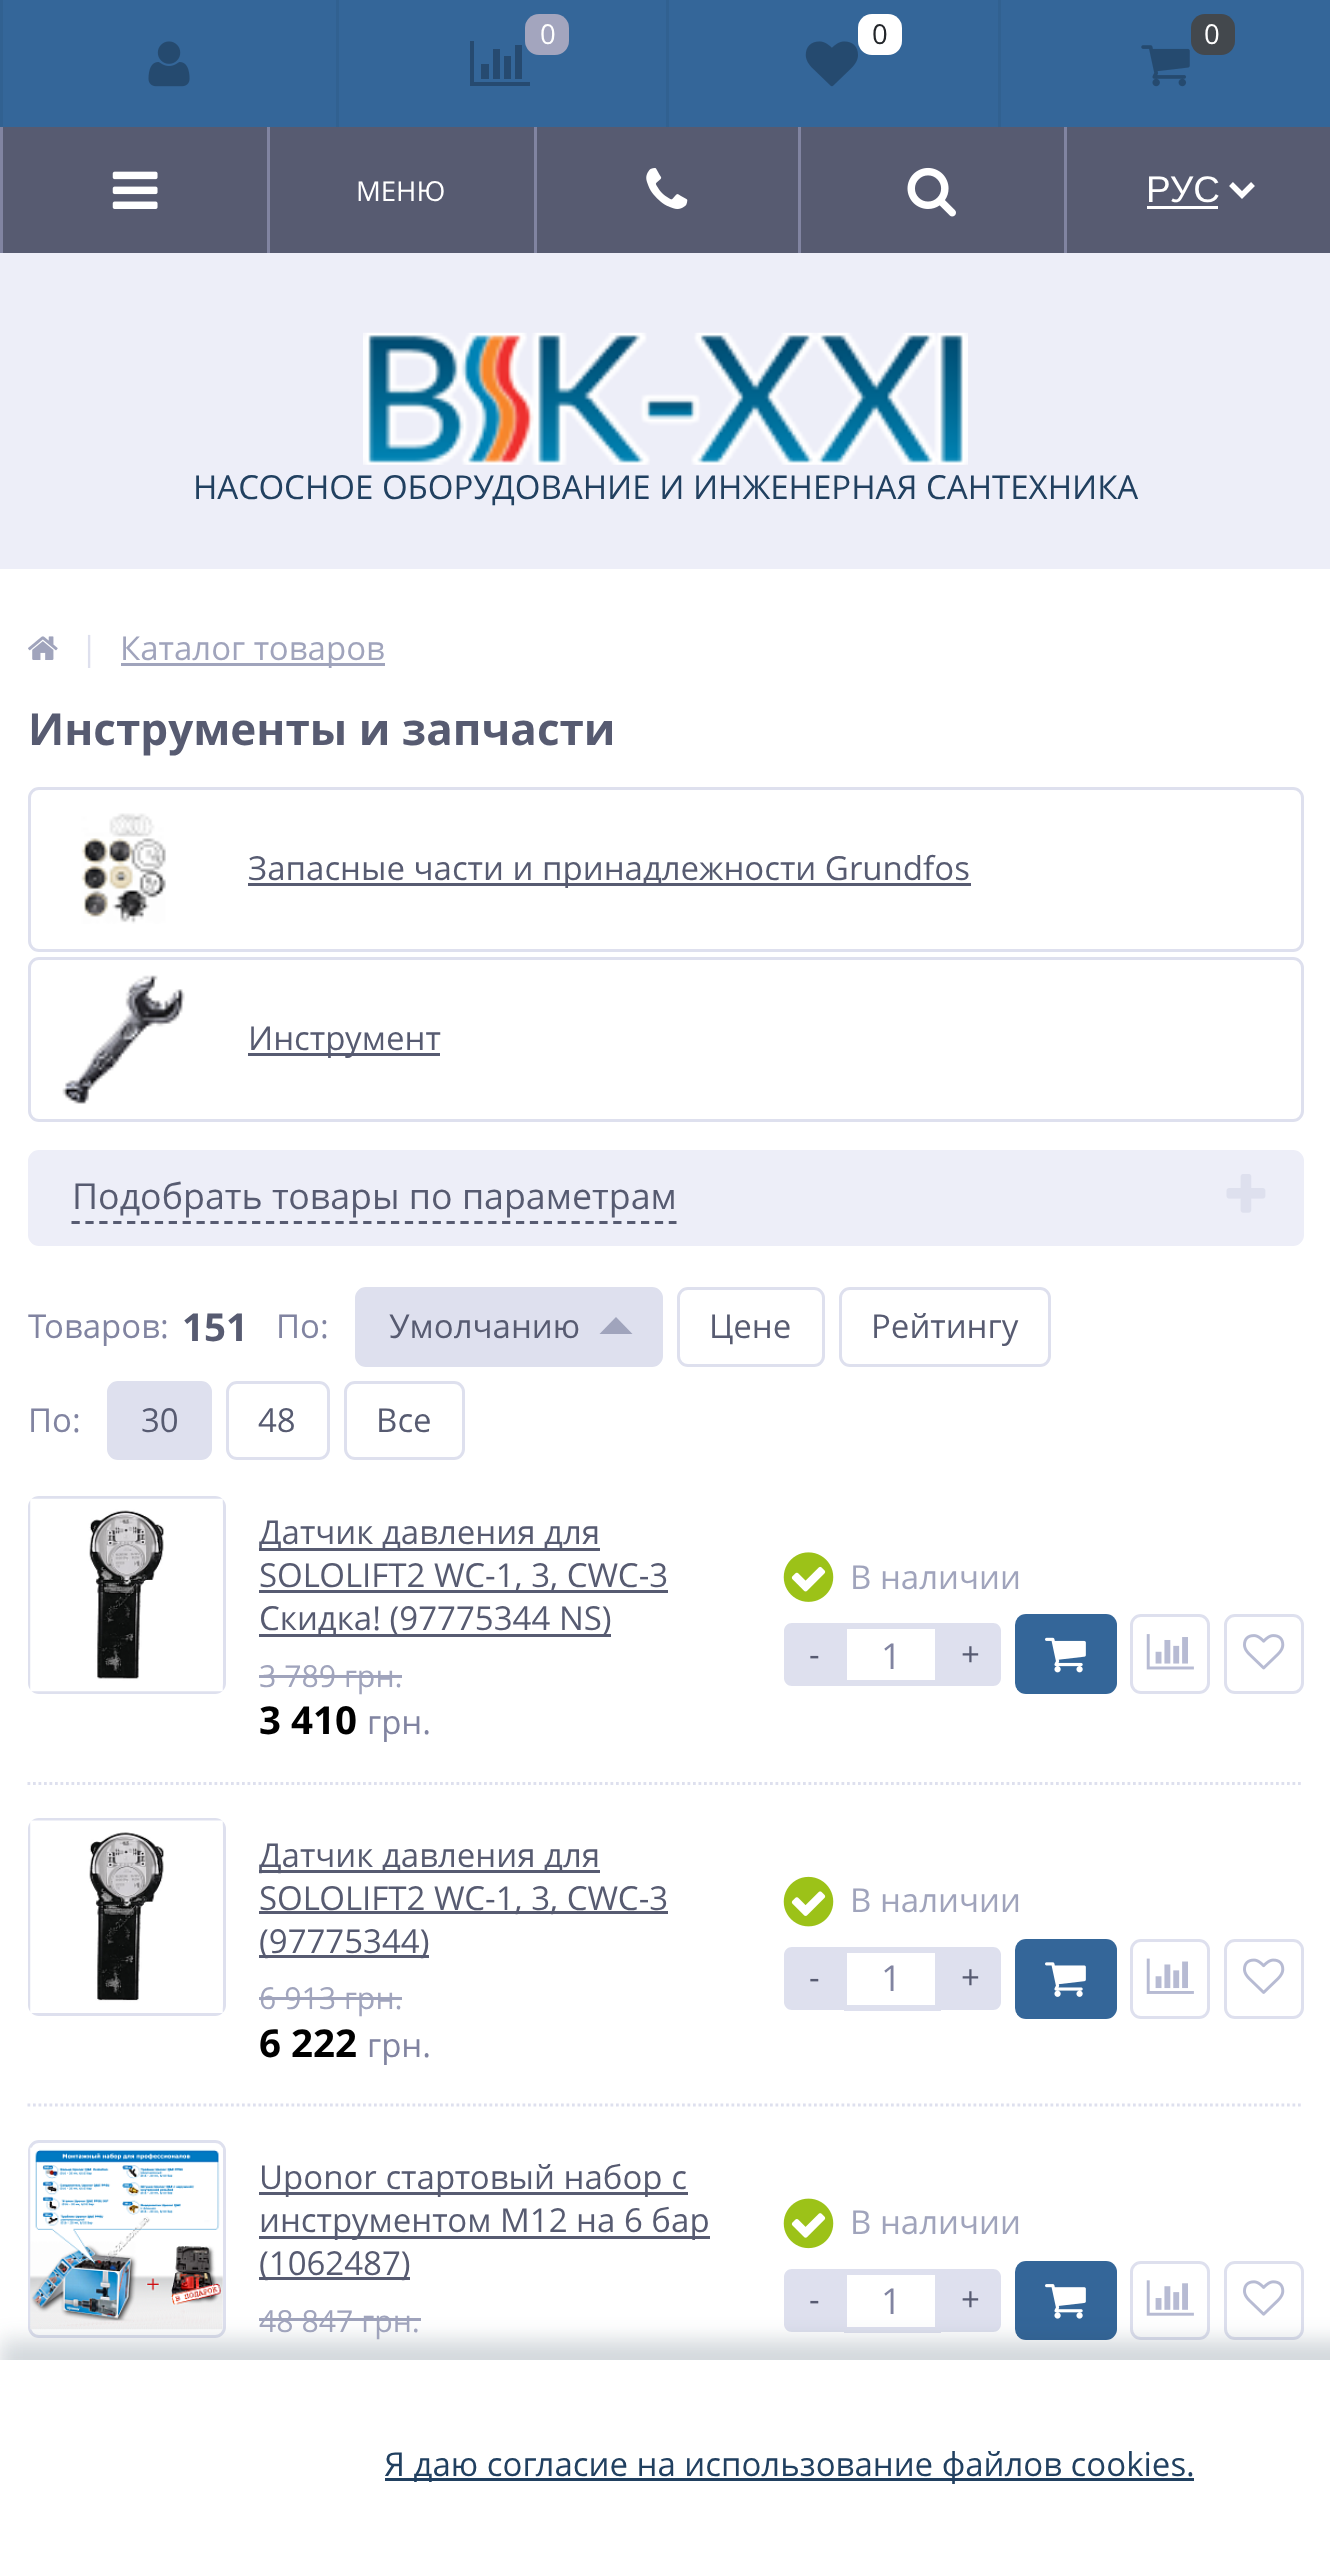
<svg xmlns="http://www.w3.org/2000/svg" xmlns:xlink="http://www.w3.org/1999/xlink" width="1330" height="2568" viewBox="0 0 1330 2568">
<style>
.cls-1{font:27.5px Open Sans;fill:#ffffff}
.cls-2{font:27.5px Open Sans;fill:#23262a}
.cls-3{font:37px Liberation Sans;fill:#ffffff}
.cls-4{font:33px Open Sans;fill:#214060}
.cls-5{font:33px Open Sans;fill:#dee0ee}
.cls-6{font:33px Open Sans;fill:#a0a4bc}
.cls-7{font:bold 44px Open Sans;fill:#575b71}
.cls-8{font:33px Open Sans;fill:#575b71}
.cls-9{font:35.75px Open Sans;fill:#575b71}
.cls-10{font:33px Open Sans;fill:#8184a1}
.cls-11{font:bold 38.5px Open Sans;fill:#575b71}
.cls-12{font:35.75px Open Sans;fill:#8184a1}
.cls-13{font:30.25px Open Sans;fill:#a0a4bc}
.cls-14{font:bold 38.5px Open Sans;fill:#000000}
</style>
<rect width="100%" height="100%" fill="#edeef8"/>
<rect fill="#346699" x="3" y="0" width="1327" height="127"/>
<rect fill="#316191" x="0" y="0" width="3" height="127"/>
<rect fill="#316191" x="336" y="0" width="3" height="127"/>
<image xlink:href="image0.png" x="148" y="41" width="42" height="46"/>
<rect fill="#316191" x="666" y="0" width="3" height="127"/>
<path fill="#264a70" d="M489 64V79H481V64ZM500 49V79H493V49ZM530 82V86H470V41H474V82ZM511 56V79H504V56ZM522 45V79H515V45Z"/>
<rect fill="#a3a5be" x="525" y="14" width="44" height="41" rx="14"/>
<rect fill="#316191" x="998" y="0" width="3" height="127"/>
<rect fill="#ffffff" x="858" y="14" width="44" height="41" rx="14"/>
<image xlink:href="image1.png" x="805" y="41" width="53" height="46"/>
<rect fill="#43484d" x="1191" y="14" width="44" height="41" rx="14"/>
<image xlink:href="image2.png" x="1141" y="45" width="49" height="42"/>
<rect fill="#575b71" x="3" y="127" width="1327" height="126"/>
<rect fill="#8184a1" x="0" y="127" width="3" height="126"/>
<image xlink:href="image3.png" x="112" y="171" width="46" height="38"/>
<rect fill="#8184a1" x="267" y="127" width="3" height="126"/>
<rect fill="#8184a1" x="534" y="127" width="3" height="126"/>
<image xlink:href="image4.png" x="646" y="168" width="42" height="41"/>
<rect fill="#8184a1" x="798" y="127" width="3" height="126"/>
<image xlink:href="image5.png" x="907" y="167" width="49" height="50"/>
<rect fill="#8184a1" x="1064" y="127" width="3" height="126"/>
<path fill="none" stroke="#ffffff" stroke-width="5.5" d="M1231 184L1242 195L1253 184"/>
<rect fill="#ffffff" x="1147" y="206" width="71" height="3"/>
<image xlink:href="image6.png" x="363" y="332" width="605" height="133"/>
<rect fill="#ffffff" x="0" y="569" width="1330" height="1791"/>
<image xlink:href="image7.png" x="28" y="636" width="30" height="24"/>
<rect fill="#a0a4bc" x="121" y="663" width="264" height="3"/>
<rect fill="none" stroke="#dee0ee" stroke-width="3" x="29.5" y="788.5" width="1273" height="162" rx="9.5"/>
<image xlink:href="image8.png" x="81" y="813" width="85" height="111"/>
<rect fill="#575b71" x="248" y="883" width="723" height="3"/>
<rect fill="none" stroke="#dee0ee" stroke-width="3" x="29.5" y="958.5" width="1273" height="162" rx="9.5"/>
<image xlink:href="image9.png" x="62" y="975" width="123" height="129"/>
<rect fill="#575b71" x="248" y="1053" width="192" height="3"/>
<rect fill="#edeef8" stroke="#edeef8" stroke-width="6" x="31" y="1153" width="1270" height="90" rx="8"/>
<path fill="none" stroke="#575b71" stroke-width="2.8" stroke-dasharray="8.25 5.64" d="M71.5 1222.5H676.5"/>
<image xlink:href="image10.png" x="1226" y="1174" width="40" height="39"/>
<rect fill="#dee0ee" stroke="#dee0ee" stroke-width="3" x="356.5" y="1288.5" width="305" height="77" rx="9.5"/>
<path fill="#a0a4bc" d="M632.5 1334H599.5L616 1317Z"/>
<rect fill="none" stroke="#dee0ee" stroke-width="3" x="678.5" y="1288.5" width="145" height="77" rx="9.5"/>
<rect fill="none" stroke="#dee0ee" stroke-width="3" x="840.5" y="1288.5" width="209" height="77" rx="9.5"/>
<rect fill="#dee0ee" stroke="#dee0ee" stroke-width="3" x="108.5" y="1382.5" width="102" height="76" rx="9.5"/>
<rect fill="none" stroke="#dee0ee" stroke-width="3" x="227.5" y="1382.5" width="101" height="76" rx="9.5"/>
<rect fill="none" stroke="#dee0ee" stroke-width="3" x="345.5" y="1382.5" width="118" height="76" rx="9.5"/>
<path fill="none" stroke="#dee0ee" stroke-width="2.8" stroke-dasharray="2.75 2.75" d="M27.5 1783.5H1303.5"/>
<rect fill="none" stroke="#dee0ee" stroke-width="3" x="29.5" y="1497.5" width="195" height="195" rx="9.5"/>
<image xlink:href="image11.png" x="30" y="1498" width="193" height="194"/>
<rect fill="#575b71" x="259" y="1548" width="341" height="3"/>
<rect fill="#575b71" x="259" y="1590" width="409" height="3"/>
<rect fill="#575b71" x="259" y="1634" width="352" height="3"/>
<image xlink:href="image12.png" x="783" y="1552" width="51" height="50"/>
<path fill="#dee0ee" d="M792 1623H844V1686H792C787.5 1686 784 1682.5 784 1678V1631C784 1626.5 787.5 1623 792 1623Z"/>
<rect fill="#dee0ee" x="844" y="1623" width="97" height="6"/>
<rect fill="#dee0ee" x="935" y="1623" width="6" height="63"/>
<rect fill="#dee0ee" x="844" y="1680" width="97" height="6"/>
<rect fill="#dee0ee" x="844" y="1623" width="3" height="63"/>
<path fill="#dee0ee" d="M941 1623H993C997.5 1623 1001 1626.5 1001 1631V1678C1001 1682.5 997.5 1686 993 1686H941Z"/>
<rect fill="#346699" x="1015" y="1614" width="102" height="80" rx="11"/>
<image xlink:href="image13.png" x="1045" y="1637" width="41" height="36"/>
<rect fill="none" stroke="#dee0ee" stroke-width="3" x="1131.5" y="1615.5" width="77" height="77" rx="9.5"/>
<image xlink:href="image14.png" x="1146" y="1634" width="48" height="36"/>
<rect fill="none" stroke="#dee0ee" stroke-width="3" x="1225.5" y="1615.5" width="77" height="77" rx="9.5"/>
<image xlink:href="image15.png" x="1243" y="1634" width="42" height="36"/>
<rect fill="#a0a4bc" x="259" y="1675" width="143" height="3"/>
<path fill="none" stroke="#dee0ee" stroke-width="2.8" stroke-dasharray="2.75 2.75" d="M27.5 2105H1303.5"/>
<rect fill="none" stroke="#dee0ee" stroke-width="3" x="29.5" y="1819.5" width="195" height="195" rx="9.5"/>
<image xlink:href="image16.png" x="30" y="1820" width="193" height="193"/>
<rect fill="#575b71" x="259" y="1870" width="341" height="3"/>
<rect fill="#575b71" x="259" y="1911" width="409" height="3"/>
<rect fill="#575b71" x="259" y="1955" width="170" height="3"/>
<image xlink:href="image17.png" x="783" y="1876" width="51" height="51"/>
<path fill="#dee0ee" d="M792 1947H844V2010H792C787.5 2010 784 2006.5 784 2002V1955C784 1950.5 787.5 1947 792 1947Z"/>
<rect fill="#dee0ee" x="844" y="1947" width="97" height="6"/>
<rect fill="#dee0ee" x="935" y="1947" width="6" height="63"/>
<rect fill="#dee0ee" x="844" y="2005" width="97" height="6"/>
<rect fill="#dee0ee" x="844" y="1947" width="3" height="63"/>
<path fill="#dee0ee" d="M941 1947H993C997.5 1947 1001 1950.5 1001 1955V2002C1001 2006.5 997.5 2010 993 2010H941Z"/>
<rect fill="#346699" x="1015" y="1939" width="102" height="80" rx="11"/>
<image xlink:href="image18.png" x="1045" y="1962" width="41" height="35"/>
<rect fill="none" stroke="#dee0ee" stroke-width="3" x="1131.5" y="1940.5" width="77" height="77" rx="9.5"/>
<image xlink:href="image19.png" x="1146" y="1958" width="48" height="36"/>
<rect fill="none" stroke="#dee0ee" stroke-width="3" x="1225.5" y="1940.5" width="77" height="77" rx="9.5"/>
<image xlink:href="image20.png" x="1243" y="1958" width="42" height="36"/>
<rect fill="#a0a4bc" x="259" y="1997" width="143" height="3"/>
<rect fill="none" stroke="#dee0ee" stroke-width="3" x="29.5" y="2141.5" width="195" height="195" rx="9.5"/>
<image xlink:href="image21.png" x="30" y="2147" width="193" height="183"/>
<rect fill="#575b71" x="259" y="2192" width="429" height="3"/>
<rect fill="#575b71" x="259" y="2236" width="451" height="3"/>
<rect fill="#575b71" x="259" y="2277" width="151" height="3"/>
<image xlink:href="image22.png" x="783" y="2198" width="51" height="51"/>
<path fill="#dee0ee" d="M792 2269H844V2332H792C787.5 2332 784 2328.5 784 2324V2277C784 2272.5 787.5 2269 792 2269Z"/>
<rect fill="#dee0ee" x="844" y="2269" width="97" height="6"/>
<rect fill="#dee0ee" x="935" y="2269" width="6" height="63"/>
<rect fill="#dee0ee" x="844" y="2327" width="97" height="6"/>
<rect fill="#dee0ee" x="844" y="2269" width="3" height="63"/>
<path fill="#dee0ee" d="M941 2269H993C997.5 2269 1001 2272.5 1001 2277V2324C1001 2328.5 997.5 2332 993 2332H941Z"/>
<rect fill="#346699" x="1015" y="2261" width="102" height="79" rx="11"/>
<image xlink:href="image23.png" x="1045" y="2284" width="41" height="35"/>
<rect fill="none" stroke="#dee0ee" stroke-width="3" x="1131.5" y="2262.5" width="77" height="76" rx="9.5"/>
<image xlink:href="image24.png" x="1146" y="2280" width="48" height="36"/>
<rect fill="none" stroke="#dee0ee" stroke-width="3" x="1225.5" y="2262.5" width="77" height="76" rx="9.5"/>
<image xlink:href="image25.png" x="1243" y="2280" width="42" height="36"/>
<rect fill="#a0a4bc" x="259" y="2318" width="162" height="3"/>
<rect fill="#223c50" fill-opacity="0.2" filter="blur(11px)" x="0" y="2340" width="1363" height="209"/>
<rect fill="#ffffff" x="0" y="2360" width="1330" height="208"/>
<rect fill="#214060" x="385" y="2478" width="809" height="3"/>
<text class="cls-1" x="540" y="44">0</text>
<text class="cls-2" x="872" y="44">0</text>
<text class="cls-1" x="1204" y="44">0</text>
<text class="cls-1" x="356" y="201">МЕНЮ</text>
<text class="cls-3" x="1146" y="202">РУС</text>
<text class="cls-4" x="193" y="499">НАСОСНОЕ ОБОРУДОВАНИЕ И ИНЖЕНЕРНАЯ САНТЕХНИКА</text>
<text class="cls-5" x="80" y="660">|</text>
<text class="cls-6" x="120" y="660">Каталог товаров</text>
<text class="cls-7" x="28" y="745">Инструменты и запчасти</text>
<text class="cls-8" x="248" y="880">Запасные части и принадлежности Grundfos</text>
<text class="cls-8" x="248" y="1050">Инструмент</text>
<text class="cls-9" x="72" y="1209">Подобрать товары по параметрам</text>
<text class="cls-10" x="28" y="1338">Товаров:</text>
<text class="cls-11" x="182" y="1341">151</text>
<text class="cls-10" x="276" y="1338">По:</text>
<text class="cls-8" x="389" y="1338">Умолчанию</text>
<text class="cls-8" x="709" y="1338">Цене</text>
<text class="cls-8" x="871" y="1338">Рейтингу</text>
<text class="cls-10" x="28" y="1432">По:</text>
<text class="cls-8" x="141" y="1432">30</text>
<text class="cls-8" x="258" y="1432">48</text>
<text class="cls-8" x="376" y="1432">Все</text>
<text class="cls-8"><tspan x="259" y="1544">Датчик давления для</tspan><tspan x="259" y="1587">SOLOLIFT2 WC-1, 3, CWC-3</tspan><tspan x="259" y="1630">Скидка! (97775344 NS)</tspan></text>
<text class="cls-6" x="850" y="1589">В наличии</text>
<text class="cls-8" x="809" y="1666">-</text>
<text class="cls-12" x="881" y="1669">1</text>
<text class="cls-8" x="961" y="1666">+</text>
<text class="cls-13" x="259" y="1687">3 789 грн.</text>
<text class="cls-14" x="259" y="1734">3 410</text>
<text class="cls-10" x="367" y="1734">грн.</text>
<text class="cls-8"><tspan x="259" y="1867">Датчик давления для</tspan><tspan x="259" y="1910">SOLOLIFT2 WC-1, 3, CWC-3</tspan><tspan x="259" y="1953">(97775344)</tspan></text>
<text class="cls-6" x="850" y="1912">В наличии</text>
<text class="cls-8" x="809" y="1989">-</text>
<text class="cls-12" x="881" y="1991">1</text>
<text class="cls-8" x="961" y="1989">+</text>
<text class="cls-13" x="259" y="2009">6 913 грн.</text>
<text class="cls-14" x="259" y="2057">6 222</text>
<text class="cls-10" x="367" y="2057">грн.</text>
<text class="cls-8"><tspan x="259" y="2189">Uponor стартовый набор с</tspan><tspan x="259" y="2232">инструментом М12 на 6 бар</tspan><tspan x="259" y="2275">(1062487)</tspan></text>
<text class="cls-6" x="850" y="2234">В наличии</text>
<text class="cls-8" x="809" y="2311">-</text>
<text class="cls-12" x="881" y="2314">1</text>
<text class="cls-8" x="961" y="2311">+</text>
<text class="cls-13" x="259" y="2332">48 847 грн.</text>
<text class="cls-4" x="384" y="2476">Я даю согласие на использование файлов cookies.</text>
</svg>
